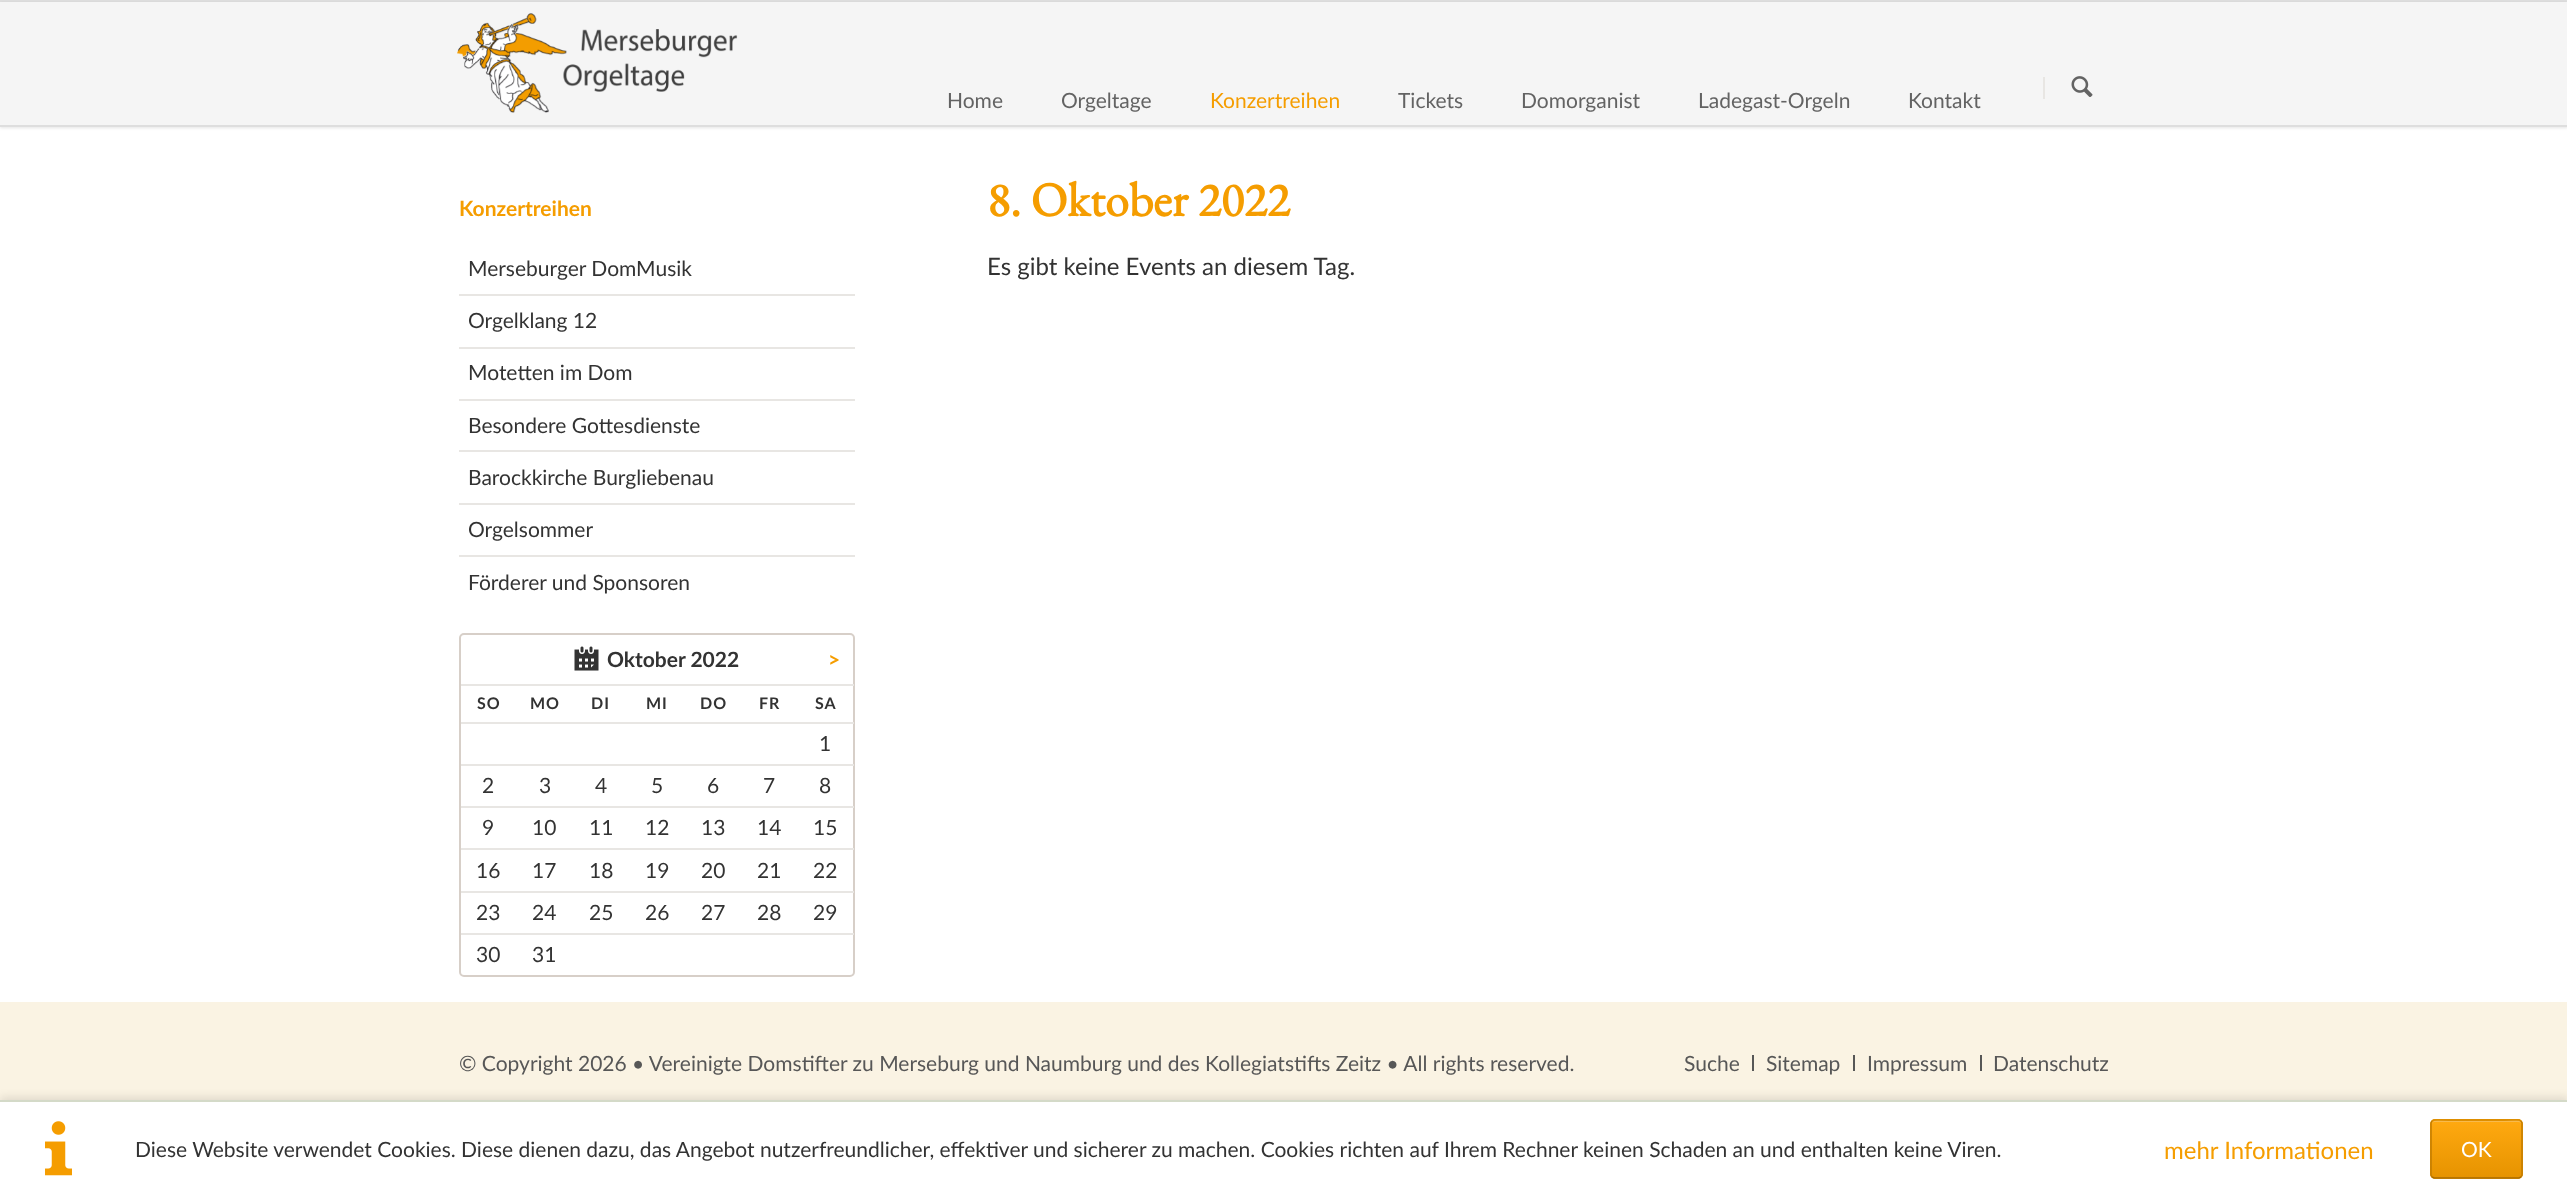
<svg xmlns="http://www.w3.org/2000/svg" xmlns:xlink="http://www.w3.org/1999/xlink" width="2567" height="1196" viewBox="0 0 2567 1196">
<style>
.cls-1{font:21px Lato;fill:#636363}
.cls-2{font:21px Lato;fill:#f59d00}
.cls-3{font:bold 21px Lato;fill:#f59d00}
.cls-4{font:21px Lato;fill:#333333}
.cls-5{font:bold 21px Lato;fill:#333333}
.cls-6{font:bold 16px Lato;letter-spacing:1px;fill:#333333}
.cls-7{font:bold 48px EB Garamond;fill:#f59d00}
.cls-8{font:24px Lato;fill:#333333}
.cls-9{font:21px Lato;fill:#575757}
.cls-10{font:24px Lato;fill:#f59d00}
.cls-11{font:21px Lato;fill:#ffffff}
</style>
<defs>
<clipPath id="clip1"><rect x="2430" y="1119" width="93" height="60" rx="5"/></clipPath>
<linearGradient id="g1" gradientUnits="userSpaceOnUse" x1="2477" y1="1064" x2="2477" y2="1121"><stop offset="0" stop-color="#ffa910"/><stop offset="1" stop-color="#e69300"/></linearGradient>
<linearGradient id="g2" gradientUnits="userSpaceOnUse" x1="2477" y1="1121" x2="2477" y2="1178"><stop offset="0" stop-color="#ffa910"/><stop offset="1" stop-color="#e69300"/></linearGradient>
<linearGradient id="g3" gradientUnits="userSpaceOnUse" x1="2477" y1="1178" x2="2477" y2="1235"><stop offset="0" stop-color="#ffa910"/><stop offset="1" stop-color="#e69300"/></linearGradient>
</defs>
<rect width="100%" height="100%" fill="#ffffff"/>
<rect fill="#dedede" x="0" y="0" width="2567" height="2"/>
<rect fill="#000000" fill-opacity="0.1" filter="blur(1.5px)" x="0" y="3" width="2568" height="125"/>
<rect fill="#f5f5f5" x="0" y="2" width="2567" height="123"/>
<rect fill="#dedede" x="0" y="125" width="2567" height="2"/>
<image xlink:href="image0.png" x="457" y="13" width="281" height="100"/>
<rect fill="#e8e6e3" x="2043" y="77" width="2" height="22"/>
<image xlink:href="image1.png" x="2071" y="76" width="22" height="21"/>
<rect fill="#e8e6e3" x="459" y="294" width="396" height="2"/>
<rect fill="#e8e6e3" x="459" y="347" width="396" height="2"/>
<rect fill="#e8e6e3" x="459" y="399" width="396" height="2"/>
<rect fill="#e8e6e3" x="459" y="450" width="396" height="2"/>
<rect fill="#e8e6e3" x="459" y="503" width="396" height="2"/>
<rect fill="#e8e6e3" x="459" y="555" width="396" height="2"/>
<rect fill="none" stroke="#d7cfc8" stroke-width="2" x="460" y="634" width="394" height="342" rx="4"/>
<image xlink:href="image2.png" x="574" y="646" width="25" height="25"/>
<rect fill="#e8e6e3" x="461" y="684" width="393" height="2"/>
<rect fill="#e8e6e3" x="461" y="722" width="393" height="2"/>
<rect fill="#e8e6e3" x="461" y="764" width="393" height="2"/>
<rect fill="#e8e6e3" x="461" y="806" width="393" height="2"/>
<rect fill="#e8e6e3" x="461" y="848" width="393" height="2"/>
<rect fill="#e8e6e3" x="461" y="891" width="393" height="2"/>
<rect fill="#e8e6e3" x="461" y="933" width="393" height="2"/>
<rect fill="#faf3e3" x="0" y="1002" width="2567" height="98"/>
<rect fill="#575757" x="1752" y="1055" width="2" height="16"/>
<rect fill="#575757" x="1853" y="1055" width="2" height="16"/>
<rect fill="#575757" x="1980" y="1055" width="2" height="16"/>
<rect fill="#000000" fill-opacity="0.1" filter="blur(4px)" x="0" y="1097" width="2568" height="97"/>
<rect fill="#ffffff" x="0" y="1102" width="2567" height="94"/>
<rect fill="#d4dac8" x="0" y="1100" width="2567" height="2"/>
<image xlink:href="image3.png" x="45" y="1121" width="27" height="55"/>
<g clip-path="url(#clip1)">
<rect fill="url(#g1)" x="2430" y="1119" width="93" height="2"/>
<rect fill="url(#g2)" x="2430" y="1121" width="93" height="57"/>
<rect fill="url(#g3)" x="2430" y="1178" width="93" height="1"/>
</g>
<path fill="#f8ba4c" d="M2434 1122H2518C2520 1122 2522 1123 2522 1125C2522 1117 2509 1121 2505 1121H2449C2445 1121 2432 1117 2432 1125C2432 1123 2433 1122 2434 1122Z"/>
<path fill="none" stroke="#dc8d00" stroke-width="1.5" d="M2432 1121L2434 1120H2519L2521 1121"/>
<path fill="none" stroke="#c27c00" stroke-width="1.5" d="M2521 1121L2522 1123V1175L2521 1177"/>
<path fill="none" stroke="#a96c00" stroke-width="1.5" d="M2521 1177L2519 1178H2434L2432 1177"/>
<path fill="none" stroke="#c27c00" stroke-width="1.5" d="M2432 1177L2431 1175V1123L2432 1121"/>
<text class="cls-1" x="947" y="108">Home</text>
<text class="cls-1" x="1061" y="108">Orgeltage</text>
<text class="cls-2" x="1210" y="108">Konzertreihen</text>
<text class="cls-1" x="1398" y="108">Tickets</text>
<text class="cls-1" x="1521" y="108">Domorganist</text>
<text class="cls-1" x="1698" y="108">Ladegast-Orgeln</text>
<text class="cls-1" x="1908" y="108">Kontakt</text>
<text class="cls-3" x="459" y="216">Konzertreihen</text>
<text class="cls-4" x="468" y="276">Merseburger DomMusik</text>
<text class="cls-4" x="468" y="328">Orgelklang 12</text>
<text class="cls-4" x="468" y="380">Motetten im Dom</text>
<text class="cls-4" x="468" y="433">Besondere Gottesdienste</text>
<text class="cls-4" x="468" y="485">Barockkirche Burgliebenau</text>
<text class="cls-4" x="468" y="537">Orgelsommer</text>
<text class="cls-4" x="468" y="590">Förderer und Sponsoren</text>
<text class="cls-5" x="607" y="667">Oktober 2022</text>
<text class="cls-3" x="828" y="667">&gt;</text>
<text class="cls-6" x="477" y="709">SO</text>
<text class="cls-6" x="530" y="709">MO</text>
<text class="cls-6" x="591" y="709">DI</text>
<text class="cls-6" x="646" y="709">MI</text>
<text class="cls-6" x="700" y="709">DO</text>
<text class="cls-6" x="759" y="709">FR</text>
<text class="cls-6" x="815" y="709">SA</text>
<text class="cls-4" x="819" y="751">1</text>
<text class="cls-4" x="482" y="793">2</text>
<text class="cls-4" x="539" y="793">3</text>
<text class="cls-4" x="595" y="793">4</text>
<text class="cls-4" x="651" y="793">5</text>
<text class="cls-4" x="707" y="793">6</text>
<text class="cls-4" x="763" y="793">7</text>
<text class="cls-4" x="819" y="793">8</text>
<text class="cls-4" x="482" y="835">9</text>
<text class="cls-4" x="532" y="835">10</text>
<text class="cls-4" x="589" y="835">11</text>
<text class="cls-4" x="645" y="835">12</text>
<text class="cls-4" x="701" y="835">13</text>
<text class="cls-4" x="757" y="835">14</text>
<text class="cls-4" x="813" y="835">15</text>
<text class="cls-4" x="476" y="878">16</text>
<text class="cls-4" x="532" y="878">17</text>
<text class="cls-4" x="589" y="878">18</text>
<text class="cls-4" x="645" y="878">19</text>
<text class="cls-4" x="701" y="878">20</text>
<text class="cls-4" x="757" y="878">21</text>
<text class="cls-4" x="813" y="878">22</text>
<text class="cls-4" x="476" y="920">23</text>
<text class="cls-4" x="532" y="920">24</text>
<text class="cls-4" x="589" y="920">25</text>
<text class="cls-4" x="645" y="920">26</text>
<text class="cls-4" x="701" y="920">27</text>
<text class="cls-4" x="757" y="920">28</text>
<text class="cls-4" x="813" y="920">29</text>
<text class="cls-4" x="476" y="962">30</text>
<text class="cls-4" x="532" y="962">31</text>
<text class="cls-7" x="987" y="216">8. Oktober 2022</text>
<text class="cls-8" x="987" y="275">Es gibt keine Events an diesem Tag.</text>
<text class="cls-9" x="459" y="1071">© Copyright 2026 • Vereinigte Domstifter zu Merseburg und Naumburg und des Kollegiatstifts Zeitz • All rights reserved.</text>
<text class="cls-9" x="1684" y="1071">Suche</text>
<text class="cls-9" x="1766" y="1071">Sitemap</text>
<text class="cls-9" x="1867" y="1071">Impressum</text>
<text class="cls-9" x="1993" y="1071">Datenschutz</text>
<text class="cls-4" x="135" y="1157">Diese Website verwendet Cookies. Diese dienen dazu, das Angebot nutzerfreundlicher, effektiver und sicherer zu machen. Cookies richten auf Ihrem Rechner keinen Schaden an und enthalten keine Viren.</text>
<text class="cls-10" x="2164" y="1159">mehr Informationen</text>
<text class="cls-11" x="2461" y="1157">OK</text>
</svg>
